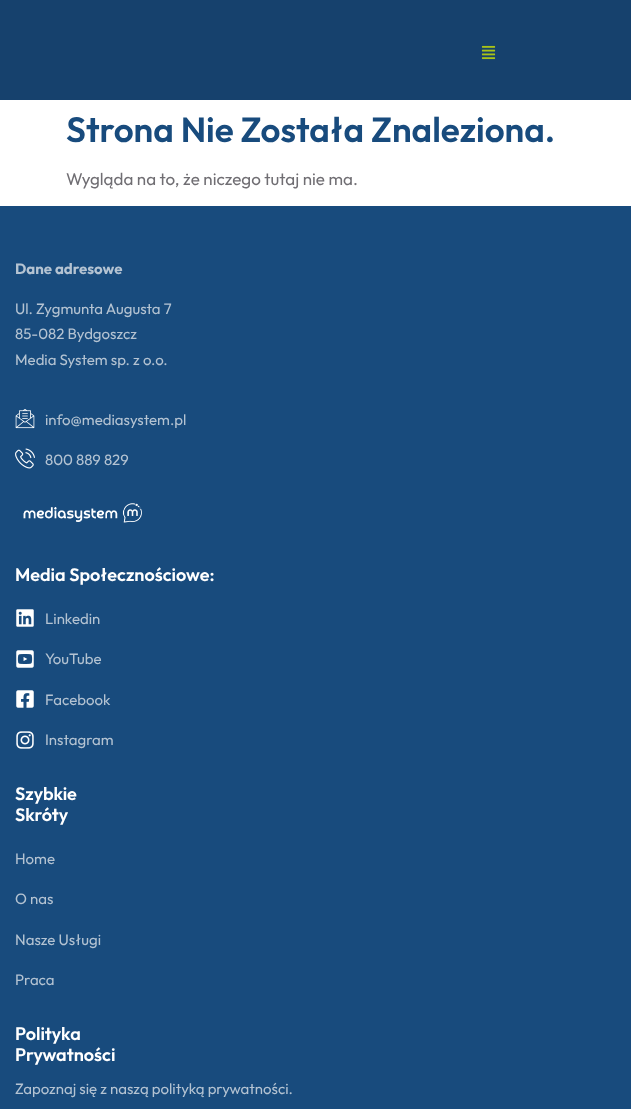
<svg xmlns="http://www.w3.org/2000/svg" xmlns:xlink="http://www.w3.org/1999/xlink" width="631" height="1109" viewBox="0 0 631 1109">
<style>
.cls-1{font:600 35px Outfit;fill:#184b7d}
.cls-2{font:17px Outfit;fill:#706e73}
.cls-3{font:bold 15px Outfit;fill:#b4c3d2}
.cls-4{font:15px Outfit;fill:#b4c3d2}
.cls-5{font:600 18px Outfit;fill:#ffffff}
</style>
<rect width="100%" height="100%" fill="#ffffff"/>
<rect fill="#16416d" x="0" y="0" width="631" height="100"/>
<image xlink:href="image0.png" x="481" y="45" width="15" height="15"/>
<rect fill="#184b7d" x="0" y="206" width="631" height="903"/>
<image xlink:href="image1.png" x="15" y="409" width="20" height="20"/>
<image xlink:href="image2.png" x="15" y="448" width="20" height="21"/>
<image xlink:href="image3.png" x="23" y="503" width="119" height="20"/>
<image xlink:href="image4.png" x="16" y="609" width="18" height="18"/>
<image xlink:href="image5.png" x="16" y="650" width="18" height="18"/>
<image xlink:href="image6.png" x="16" y="690" width="18" height="18"/>
<image xlink:href="image7.png" x="16" y="731" width="18" height="18"/>
<text class="cls-1" x="66" y="142">Strona Nie Została Znaleziona.</text>
<text class="cls-2" x="66" y="185">Wygląda na to, że niczego tutaj nie ma.</text>
<text class="cls-3" x="15" y="274">Dane adresowe</text>
<text class="cls-4"><tspan x="15" y="314">Ul. Zygmunta Augusta 7</tspan><tspan x="15" y="339">85-082 Bydgoszcz</tspan><tspan x="15" y="365">Media System sp. z o.o.</tspan></text>
<text class="cls-4" x="45" y="425">info@mediasystem.pl</text>
<text class="cls-4" x="45" y="465">800 889 829</text>
<text class="cls-5" x="15" y="581">Media Społecznościowe:</text>
<text class="cls-4" x="45" y="624">Linkedin</text>
<text class="cls-4" x="45" y="664">YouTube</text>
<text class="cls-4" x="45" y="705">Facebook</text>
<text class="cls-4" x="45" y="745">Instagram</text>
<text class="cls-5"><tspan x="15" y="800">Szybkie</tspan><tspan x="15" y="821">Skróty</tspan></text>
<text class="cls-4" x="15" y="864">Home</text>
<text class="cls-4" x="15" y="904">O nas</text>
<text class="cls-4" x="15" y="945">Nasze Usługi</text>
<text class="cls-4" x="15" y="985">Praca</text>
<text class="cls-5"><tspan x="15" y="1040">Polityka</tspan><tspan x="15" y="1061">Prywatności</tspan></text>
<text class="cls-4" x="15" y="1094">Zapoznaj się z naszą polityką prywatności.</text>
</svg>
